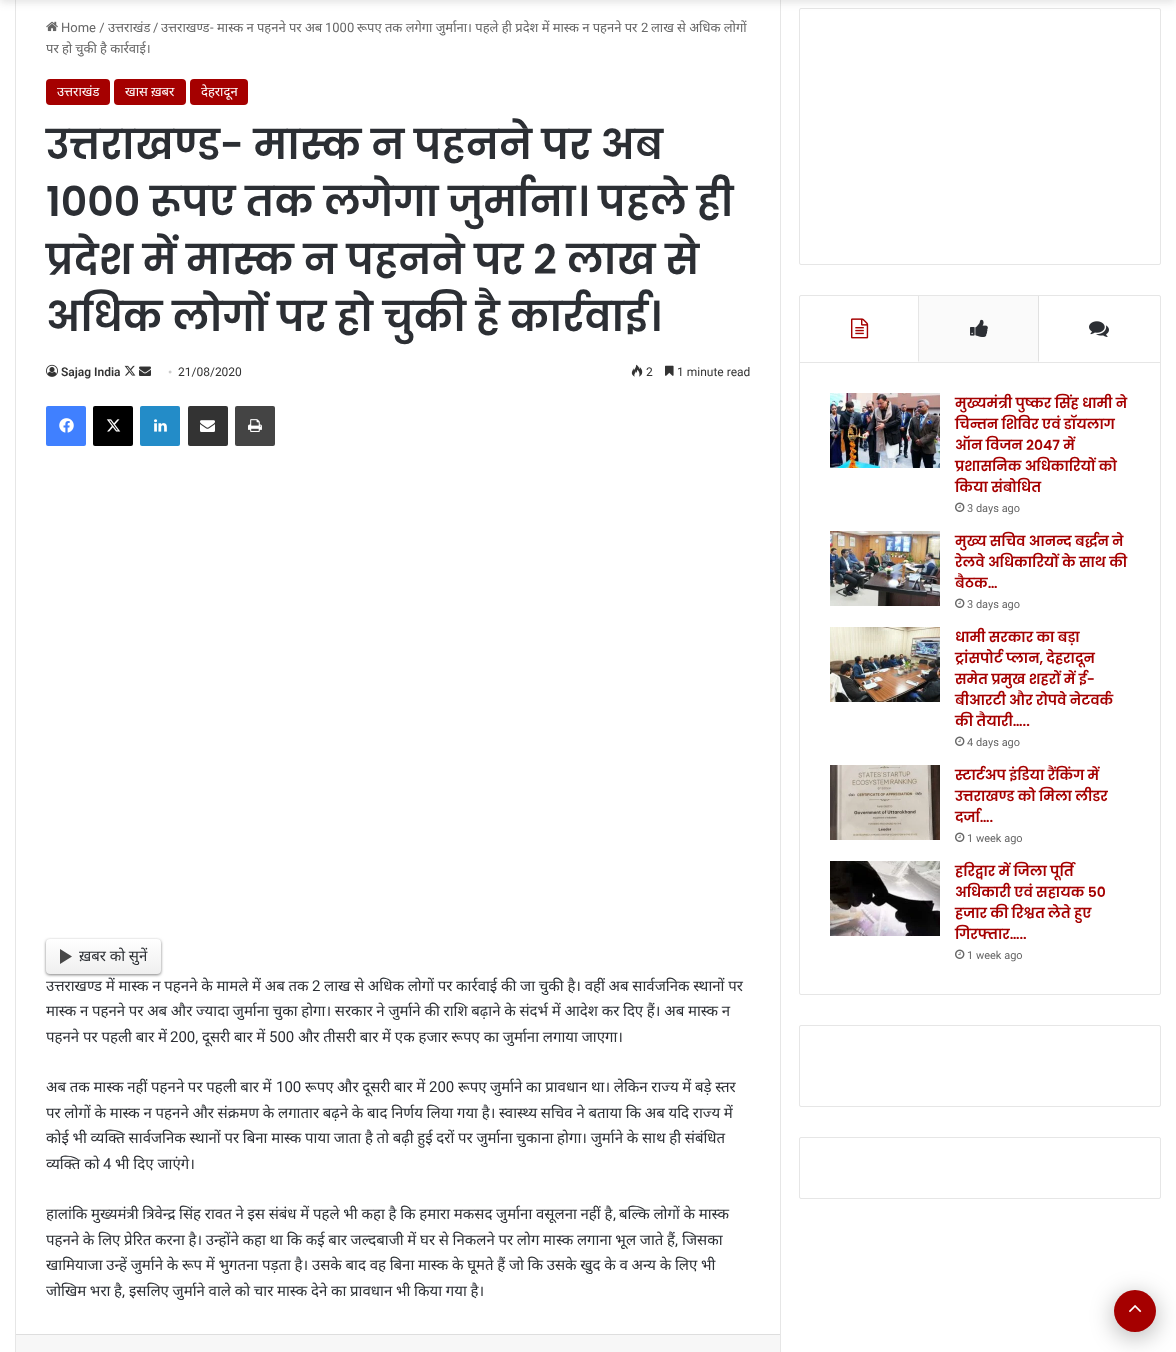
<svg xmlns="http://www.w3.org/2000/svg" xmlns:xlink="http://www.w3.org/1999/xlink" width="1176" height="1352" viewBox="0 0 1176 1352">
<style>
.cls-1{font:13px Roboto;fill:#666666}
.cls-2{font:13px Noto Sans;fill:#666666}
.cls-3{font:13px Noto Sans;fill:#ffffff}
.cls-4{font:600 41px Poppins;fill:#2c2f34}
.cls-5{font:600 12px Roboto;fill:#333333}
.cls-6{font:12px Liberation Serif;fill:#cccccc}
.cls-7{font:12px Roboto;fill:#333333}
.cls-8{font:15px Noto Sans;fill:#2c2f34}
.cls-9{font:15px Roboto;fill:#2c2f34}
.cls-10{font:600 14px Poppins;fill:#a50000}
.cls-11{font:11px Roboto;fill:#666666}
</style>
<defs>
<linearGradient id="g1" gradientUnits="userSpaceOnUse" x1="104" y1="939" x2="104" y2="974"><stop offset="0" stop-color="#ffffff"/><stop offset="1" stop-color="#efefef"/></linearGradient>
</defs>
<rect width="100%" height="100%" fill="#ffffff"/>
<rect fill="none" stroke="#e6e6e6" x="15.5" y="-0.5" width="765" height="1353"/>
<rect fill="none" stroke="#e6e6e6" x="799.5" y="8.5" width="361" height="256" rx="1.5"/>
<rect fill="#636363" fill-opacity="0.2" filter="blur(4px)" x="0" y="-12" width="1176" height="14"/>
<image xlink:href="image0.png" x="46" y="21" width="12" height="11"/>
<rect fill="#a50000" x="46" y="79" width="64" height="26" rx="4"/>
<rect fill="#a50000" x="114" y="79" width="72" height="26" rx="4"/>
<rect fill="#a50000" x="190" y="79" width="58" height="26" rx="4"/>
<image xlink:href="image1.png" x="46" y="364" width="12" height="13"/>
<image xlink:href="image2.png" x="124" y="365" width="12" height="11"/>
<image xlink:href="image3.png" x="139" y="366" width="12" height="10"/>
<image xlink:href="image4.png" x="631" y="364" width="12" height="13"/>
<image xlink:href="image5.png" x="665" y="365" width="9" height="11"/>
<rect fill="#4080ff" x="46" y="406" width="40" height="40" rx="2"/>
<image xlink:href="image6.png" x="59" y="418" width="15" height="15"/>
<rect fill="#000000" x="93" y="406" width="40" height="40" rx="2"/>
<image xlink:href="image7.png" x="106" y="419" width="15" height="13"/>
<rect fill="#238cc8" x="140" y="406" width="40" height="40" rx="2"/>
<image xlink:href="image8.png" x="154" y="419" width="13" height="13"/>
<rect fill="#333333" x="188" y="406" width="40" height="40" rx="2"/>
<image xlink:href="image9.png" x="200" y="420" width="15" height="12"/>
<rect fill="#444444" x="235" y="406" width="40" height="40" rx="2"/>
<image xlink:href="image10.png" x="248" y="419" width="14" height="13"/>
<rect fill="#808080" filter="blur(1.5px)" x="46" y="940" width="115" height="35" rx="4"/>
<rect fill="url(#g1)" x="46" y="939" width="115" height="35" rx="4"/>
<path fill="#484848" d="M72 956.5L60 964V949Z"/>
<rect fill="#f7f7f7" x="16" y="1335" width="764" height="17"/>
<rect fill="#dedede" x="16" y="1334" width="764" height="1"/>
<rect fill="none" stroke="#e6e6e6" x="799.5" y="295.5" width="361" height="699" rx="1.5"/>
<rect fill="#e6e6e6" x="800" y="362" width="360" height="1"/>
<path fill="#e6e6e6" d="M919 296V362L918 361V296Z"/>
<image xlink:href="image11.png" x="851" y="318" width="18" height="21"/>
<rect fill="#fafafa" x="919" y="296" width="120" height="66"/>
<path fill="#e1e1e1" d="M1039 296V362L1038 361V296Z"/>
<image xlink:href="image12.png" x="970" y="319" width="18" height="18"/>
<image xlink:href="image13.png" x="1089" y="321" width="20" height="16"/>
<image xlink:href="image14.png" x="830" y="393" width="110" height="75"/>
<image xlink:href="image15.png" x="955" y="502" width="10" height="10"/>
<image xlink:href="image16.png" x="830" y="531" width="110" height="75"/>
<image xlink:href="image15.png" x="955" y="598" width="10" height="10"/>
<image xlink:href="image17.png" x="830" y="627" width="110" height="75"/>
<image xlink:href="image15.png" x="955" y="736" width="10" height="10"/>
<image xlink:href="image18.png" x="830" y="765" width="110" height="75"/>
<image xlink:href="image15.png" x="955" y="832" width="10" height="10"/>
<image xlink:href="image19.png" x="830" y="861" width="110" height="75"/>
<image xlink:href="image15.png" x="955" y="949" width="10" height="10"/>
<rect fill="none" stroke="#e6e6e6" x="799.5" y="1025.5" width="361" height="81" rx="1.5"/>
<rect fill="none" stroke="#e6e6e6" x="799.5" y="1137.5" width="361" height="61" rx="1.5"/>
<rect fill="#000000" fill-opacity="0.3" filter="blur(12.5px)" x="1114" y="1295" width="42" height="42" rx="21"/>
<circle fill="#a50000" cx="1135" cy="1311" r="21"/>
<image xlink:href="image20.png" x="1129" y="1305" width="13" height="8"/>
<text class="cls-1" x="61" y="32">Home /</text>
<text class="cls-2" x="108" y="32">उत्तराखंड</text>
<text class="cls-1" x="153" y="32">/</text>
<text class="cls-2" x="161" y="32">उत्तराखण्ड</text>
<text class="cls-1" x="210" y="32">-</text>
<text class="cls-2" x="217" y="32" word-spacing="-0.1">मास्क न पहनने पर अब</text>
<text class="cls-1" x="325" y="32">1000</text>
<text class="cls-2" x="357" y="32" word-spacing="-0.1">रूपए तक लगेगा जुर्माना। पहले ही प्रदेश में मास्क न पहनने पर</text>
<text class="cls-1" x="641" y="32">2</text>
<text class="cls-2" x="651" y="32" word-spacing="-0.1">लाख से अधिक लोगों</text>
<text class="cls-2" x="46" y="53" word-spacing="-0.2">पर हो चुकी है कार्रवाई।</text>
<text class="cls-3" x="57" y="96">उत्तराखंड</text>
<text class="cls-3" x="125" y="96" word-spacing="-0.2">खास ख़बर</text>
<text class="cls-3" x="201" y="96">देहरादून</text>
<text class="cls-4"><tspan x="46" y="159">उत्तराखण्ड- मास्क न पहनने पर अब</tspan><tspan x="46" y="216">1000 रूपए तक लगेगा जुर्माना। पहले ही</tspan><tspan x="46" y="274">प्रदेश में मास्क न पहनने पर 2 लाख से</tspan><tspan x="46" y="331">अधिक लोगों पर हो चुकी है कार्रवाई।</tspan></text>
<text class="cls-5" x="61" y="376">Sajag India</text>
<text class="cls-6" x="168" y="376">•</text>
<text class="cls-7" x="178" y="376">21/08/2020</text>
<text class="cls-7" x="646" y="376">2</text>
<text class="cls-7" x="677" y="376">1 minute read</text>
<text class="cls-8" x="79" y="961" word-spacing="-0.2">ख़बर को सुनें</text>
<text class="cls-8" x="46" y="991" word-spacing="-0.2">उत्तराखण्ड में मास्क न पहनने के मामले में अब तक</text>
<text class="cls-9" x="312" y="991">2</text>
<text class="cls-8" x="324" y="991" word-spacing="-0.2">लाख से अधिक लोगों पर कार्रवाई की जा चुकी है। वहीं अब सार्वजनिक स्थानों पर</text>
<text class="cls-8"><tspan x="46" y="1016" word-spacing="-0.2">मास्क न पहनने पर अब और ज्यादा जुर्माना चुका होगा। सरकार ने जुर्माने की राशि बढ़ाने के संदर्भ में आदेश कर दिए हैं। अब मास्क न</tspan><tspan x="46" y="1042" word-spacing="-0.1">पहनने पर पहली बार में</tspan></text>
<text class="cls-9" x="170" y="1042">200,</text>
<text class="cls-8" x="202" y="1042" word-spacing="-0.1">दूसरी बार में</text>
<text class="cls-9" x="269" y="1042">500</text>
<text class="cls-8" x="298" y="1042" word-spacing="-0.1">और तीसरी बार में एक हजार रूपए का जुर्माना लगाया जाएगा।</text>
<text class="cls-8" x="46" y="1092" word-spacing="-0.25">अब तक मास्क नहीं पहनने पर पहली बार में</text>
<text class="cls-9" x="276" y="1092">100</text>
<text class="cls-8" x="305" y="1092" word-spacing="-0.25">रूपए और दूसरी बार में</text>
<text class="cls-9" x="429" y="1092">200</text>
<text class="cls-8" x="458" y="1092" word-spacing="-0.25">रूपए जुर्माने का प्रावधान था। लेकिन राज्य में बड़े स्तर</text>
<text class="cls-8"><tspan x="46" y="1118" word-spacing="-0.2">पर लोगों के मास्क न पहनने और संक्रमण के लगातार बढ़ने के बाद निर्णय लिया गया है। स्वास्थ्य सचिव ने बताया कि अब यदि राज्य में</tspan><tspan x="46" y="1143" word-spacing="-0.2">कोई भी व्यक्ति सार्वजनिक स्थानों पर बिना मास्क पाया जाता है तो बढ़ी हुई दरों पर जुर्माना चुकाना होगा। जुर्माने के साथ ही संबंधित</tspan><tspan x="46" y="1169">व्यक्ति को</tspan></text>
<text class="cls-9" x="103" y="1169">4</text>
<text class="cls-8" x="115" y="1169">भी दिए जाएंगे।</text>
<text class="cls-8" x="46" y="1219" word-spacing="-0.2">हालांकि मुख्यमंत्री त्रिवेन्द्र सिंह रावत ने इस संबंध में पहले भी कहा है कि हमारा मकसद जुर्माना वसूलना नहीं है</text>
<text class="cls-9" x="613" y="1219">,</text>
<text class="cls-8" x="619" y="1219" word-spacing="-0.2">बल्कि लोगों के मास्क</text>
<text class="cls-8" x="46" y="1245" word-spacing="-0.2">पहनने के लिए प्रेरित करना है। उन्होंने कहा था कि कई बार जल्दबाजी में घर से निकलने पर लोग मास्क लगाना भूल जाते हैं</text>
<text class="cls-9" x="675" y="1245">,</text>
<text class="cls-8" x="682" y="1245">जिसका</text>
<text class="cls-8"><tspan x="46" y="1270" word-spacing="-0.2">खामियाजा उन्हें जुर्माने के रूप में भुगतना पड़ता है। उसके बाद वह बिना मास्क के घूमते हैं जो कि उसके खुद के व अन्य के लिए भी</tspan><tspan x="46" y="1296" word-spacing="-0.2">जोखिम भरा है</tspan></text>
<text class="cls-9" x="122" y="1296">,</text>
<text class="cls-8" x="129" y="1296" word-spacing="-0.2">इसलिए जुर्माने वाले को चार मास्क देने का प्रावधान भी किया गया है।</text>
<text class="cls-10"><tspan x="955" y="408">मुख्यमंत्री पुष्कर सिंह धामी ने</tspan><tspan x="955" y="429">चिन्तन शिविर एवं डॉयलाग</tspan><tspan x="955" y="450">ऑन विजन 2047 में</tspan><tspan x="955" y="471">प्रशासनिक अधिकारियों को</tspan><tspan x="955" y="492">किया संबोधित</tspan></text>
<text class="cls-11" x="967" y="512">3 days ago</text>
<text class="cls-10"><tspan x="955" y="546">मुख्य सचिव आनन्द बर्द्धन ने</tspan><tspan x="955" y="567">रेलवे अधिकारियों के साथ की</tspan><tspan x="955" y="588">बैठक…</tspan></text>
<text class="cls-11" x="967" y="608">3 days ago</text>
<text class="cls-10"><tspan x="955" y="642">धामी सरकार का बड़ा</tspan><tspan x="955" y="663">ट्रांसपोर्ट प्लान, देहरादून</tspan><tspan x="955" y="684">समेत प्रमुख शहरों में ई-</tspan><tspan x="955" y="705">बीआरटी और रोपवे नेटवर्क</tspan><tspan x="955" y="726">की तैयारी…..</tspan></text>
<text class="cls-11" x="967" y="746">4 days ago</text>
<text class="cls-10"><tspan x="955" y="780">स्टार्टअप इंडिया रैंकिंग में</tspan><tspan x="955" y="801">उत्तराखण्ड को मिला लीडर</tspan><tspan x="955" y="822">दर्जा….</tspan></text>
<text class="cls-11" x="967" y="842">1 week ago</text>
<text class="cls-10"><tspan x="955" y="876">हरिद्वार में जिला पूर्ति</tspan><tspan x="955" y="897">अधिकारी एवं सहायक 50</tspan><tspan x="955" y="918">हजार की रिश्वत लेते हुए</tspan><tspan x="955" y="939">गिरफ्तार…..</tspan></text>
<text class="cls-11" x="967" y="959">1 week ago</text>
</svg>
